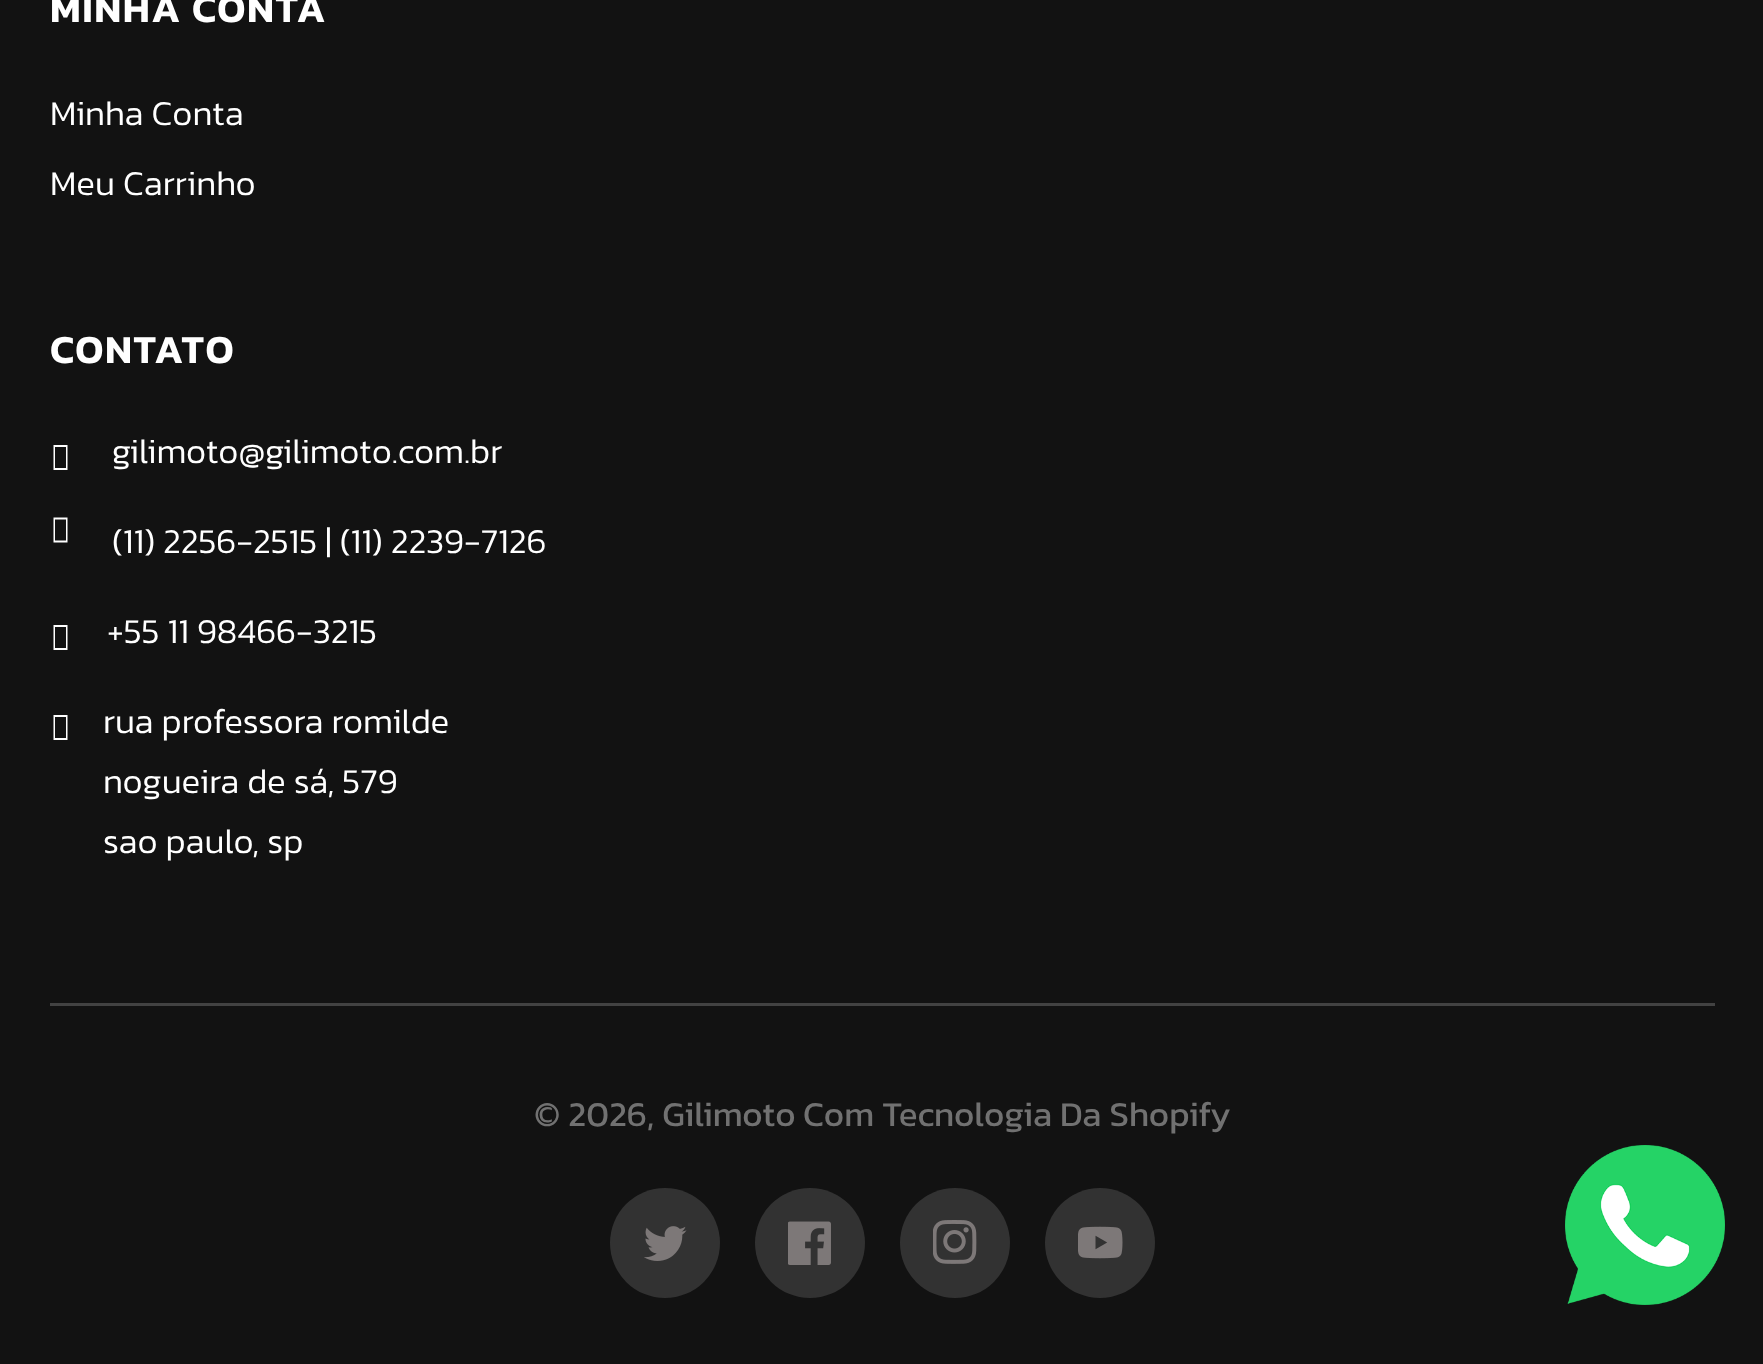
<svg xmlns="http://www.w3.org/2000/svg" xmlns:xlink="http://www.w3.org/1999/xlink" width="1763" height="1364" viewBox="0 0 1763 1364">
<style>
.cls-1{font:600 40px Kanit;letter-spacing:1.5px;fill:#ffffff}
.cls-2{font:300 35px Kanit;fill:#ffffff}
.cls-3{font:35px Kanit;fill:#717171}
</style>
<rect width="100%" height="100%" fill="#121212"/>
<path fill="#ffffff" d="M53.5 470V445H67.5V470ZM55 468H66V447H55Z"/>
<path fill="#ffffff" d="M53.5 542.5V517.5H67.5V542.5ZM55 540.5H66V519.5H55Z"/>
<path fill="#ffffff" d="M53.5 650V625H67.5V650ZM55 648H66V627H55Z"/>
<path fill="#ffffff" d="M53.5 740V715H67.5V740ZM55 738H66V717H55Z"/>
<rect fill="#424242" x="50" y="1003" width="1665" height="3"/>
<circle fill="#323232" cx="665" cy="1243" r="55"/>
<image xlink:href="image0.png" x="644" y="1226" width="43" height="35"/>
<circle fill="#323232" cx="810" cy="1243" r="55"/>
<image xlink:href="image1.png" x="788" y="1221" width="43" height="44"/>
<circle fill="#323232" cx="955" cy="1243" r="55"/>
<image xlink:href="image2.png" x="933" y="1220" width="44" height="44"/>
<circle fill="#323232" cx="1100" cy="1243" r="55"/>
<image xlink:href="image3.png" x="1078" y="1226" width="45" height="33"/>
<image xlink:href="image4.png" x="1565" y="1145" width="160" height="160"/>
<text class="cls-1" x="50" y="22">MINHA CONTA</text>
<text class="cls-2" x="50" y="125">Minha Conta</text>
<text class="cls-2" x="50" y="195">Meu Carrinho</text>
<text class="cls-1" x="50" y="363">CONTATO</text>
<text class="cls-2" x="112" y="463">gilimoto@gilimoto.com.br</text>
<text class="cls-2" x="112" y="553">(11) 2256-2515 | (11) 2239-7126</text>
<text class="cls-2" x="107" y="643">+55 11 98466-3215</text>
<text class="cls-2"><tspan x="103" y="733">rua professora romilde</tspan><tspan x="103" y="793">nogueira de sá, 579</tspan><tspan x="103" y="853">sao paulo, sp</tspan></text>
<text class="cls-3" x="534" y="1126">© 2026, Gilimoto</text>
<text class="cls-3" x="803" y="1126">Com Tecnologia Da Shopify</text>
</svg>
